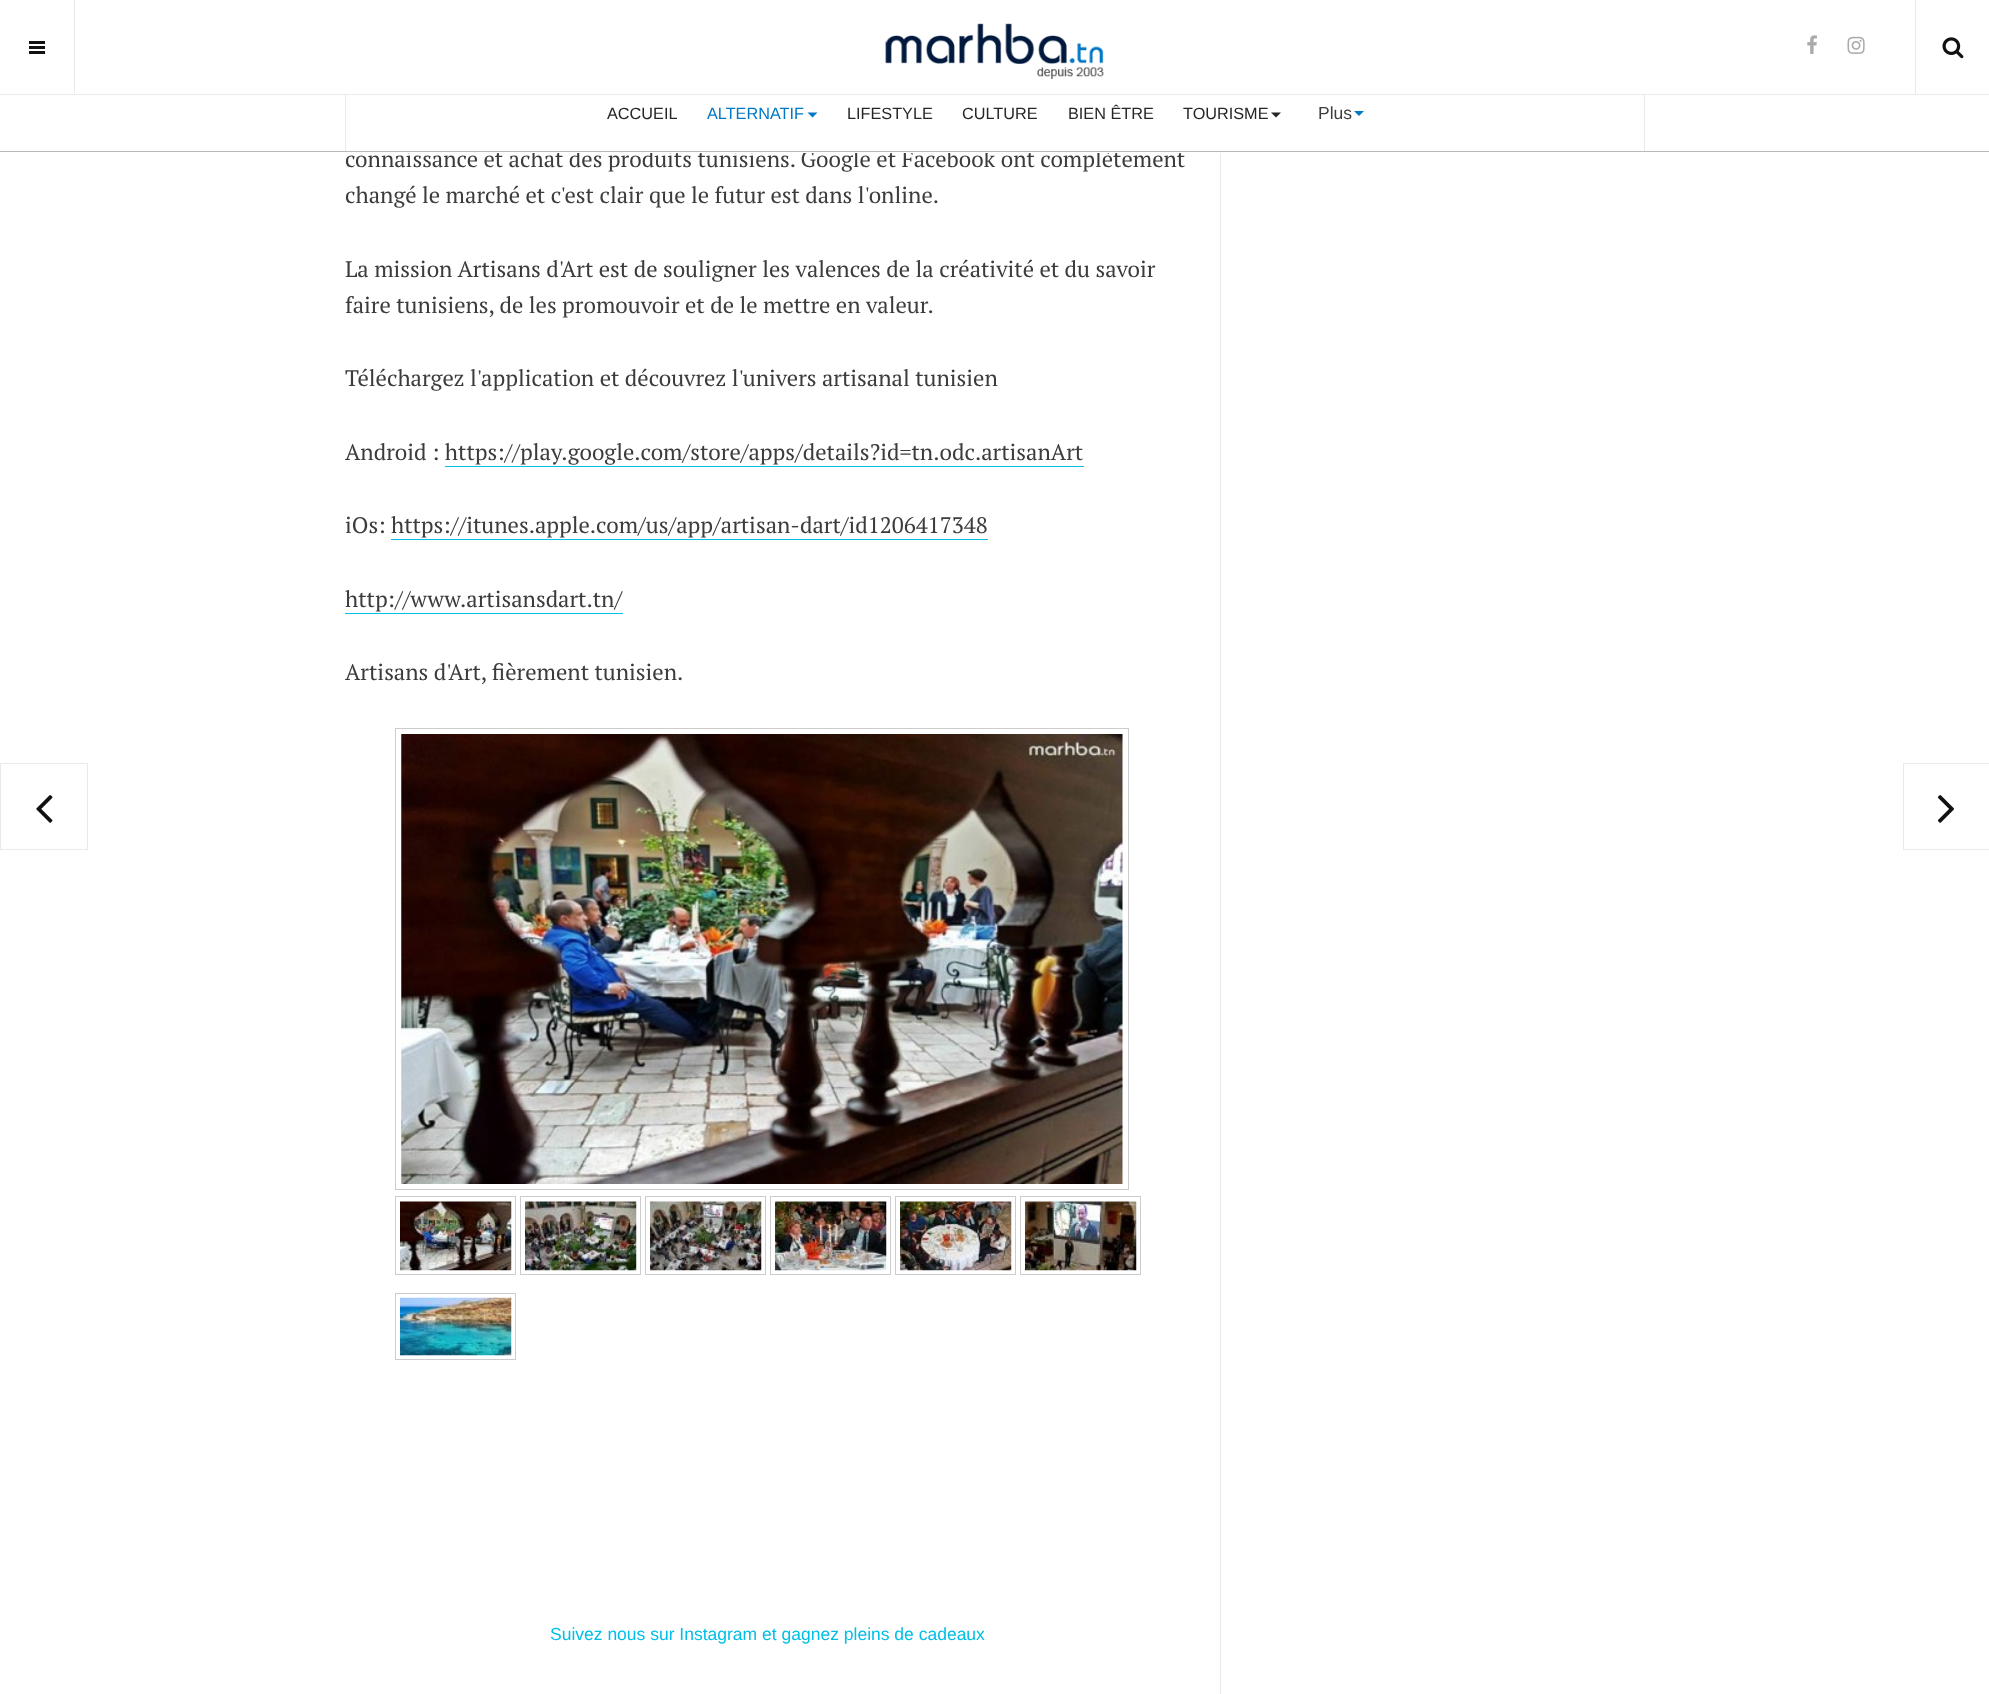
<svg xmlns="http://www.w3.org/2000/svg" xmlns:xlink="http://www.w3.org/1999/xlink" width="1989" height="1694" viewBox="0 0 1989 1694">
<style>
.cls-1{font:16.25px Liberation Sans;fill:#262626}
.cls-2{font:16.25px Liberation Sans;fill:#0078c6}
.cls-3{font:17.5px Liberation Sans;fill:#3c3c3c}
.cls-4{font:22.5px PT Serif;fill:#3c3c3c}
.cls-5{font:17.5px Liberation Sans;fill:#00bfe6}
</style>
<rect width="100%" height="100%" fill="#ffffff"/>
<rect fill="#eaeaea" x="0" y="94" width="1989" height="1"/>
<rect fill="#eaeaea" x="74" y="0" width="1" height="93"/>
<rect fill="#111111" x="29" y="46" width="16" height="3"/>
<rect fill="#111111" x="29" y="41" width="16" height="3"/>
<rect fill="#111111" x="29" y="51" width="16" height="3"/>
<image xlink:href="image0.png" x="885" y="23" width="219" height="56"/>
<image xlink:href="image1.png" x="1807" y="35" width="10" height="19"/>
<image xlink:href="image2.png" x="1847" y="36" width="18" height="18"/>
<rect fill="#eaeaea" x="1915" y="0" width="1" height="94"/>
<image xlink:href="image3.png" x="1942" y="37" width="22" height="22"/>
<rect fill="#eaeaea" x="1644" y="95" width="1" height="56"/>
<path fill="#0078c6" d="M807.5 112.5H817.5L812.5 117.5Z"/>
<path fill="#262626" d="M1271 112.5H1281L1276 117.5Z"/>
<path fill="#0078c6" d="M1354 111H1364L1359 116Z"/>
<rect fill="#00bfe6" x="445" y="466" width="639" height="1"/>
<rect fill="#00bfe6" x="391" y="539" width="597" height="1"/>
<rect fill="#00bfe6" x="345" y="613" width="278" height="1"/>
<rect fill="none" stroke="#cccccc" x="395.5" y="728.5" width="733" height="461"/>
<image xlink:href="image4.png" x="401" y="734" width="722" height="450"/>
<rect fill="none" stroke="#cccccc" x="395.5" y="1196.5" width="120" height="78"/>
<image xlink:href="image5.png" x="400" y="1201" width="112" height="70"/>
<rect fill="none" stroke="#cccccc" x="520.5" y="1196.5" width="120" height="78"/>
<image xlink:href="image6.png" x="525" y="1201" width="112" height="70"/>
<rect fill="none" stroke="#cccccc" x="645.5" y="1196.5" width="120" height="78"/>
<image xlink:href="image7.png" x="650" y="1201" width="112" height="70"/>
<rect fill="none" stroke="#cccccc" x="770.5" y="1196.5" width="120" height="78"/>
<image xlink:href="image8.png" x="775" y="1201" width="112" height="70"/>
<rect fill="none" stroke="#cccccc" x="895.5" y="1196.5" width="120" height="78"/>
<image xlink:href="image9.png" x="900" y="1201" width="112" height="70"/>
<rect fill="none" stroke="#cccccc" x="1020.5" y="1196.5" width="120" height="78"/>
<image xlink:href="image10.png" x="1025" y="1201" width="112" height="70"/>
<rect fill="none" stroke="#cccccc" x="395.5" y="1293.5" width="120" height="66"/>
<image xlink:href="image11.png" x="400" y="1297" width="112" height="59"/>
<rect fill="none" stroke="#eaeaea" x="0.5" y="763.5" width="87" height="86"/>
<image xlink:href="image12.png" x="36" y="795" width="17" height="28"/>
<rect fill="none" stroke="#eaeaea" x="1903.5" y="763.5" width="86" height="86"/>
<image xlink:href="image13.png" x="1937" y="795" width="17" height="28"/>
<rect fill="#eaeaea" x="1220" y="153" width="1" height="1541"/>
<text class="cls-1" x="607" y="119">ACCUEIL</text>
<text class="cls-2" x="707" y="119">ALTERNATIF</text>
<text class="cls-1" x="847" y="119">LIFESTYLE</text>
<text class="cls-1" x="962" y="119">CULTURE</text>
<text class="cls-1" x="1068" y="119">BIEN ÊTRE</text>
<text class="cls-1" x="1183" y="119">TOURISME</text>
<text class="cls-3" x="1318" y="119">Plus</text>
<text class="cls-4" x="345" y="167">connaissance et achat des produits tunisiens. Google et Facebook ont complètement</text>
<rect fill="#eaeaea" x="345" y="95" width="1" height="56"/>
<rect fill="#ffffff" x="407" y="149" width="774" height="4"/>
<rect fill="#b9b9b9" x="0" y="151" width="1989" height="1"/>
<text class="cls-4" x="345" y="203">changé le marché et c'est clair que le futur est dans l'online.</text>
<text class="cls-4"><tspan x="345" y="277">La mission Artisans d'Art est de souligner les valences de la créativité et du savoir</tspan><tspan x="345" y="313">faire tunisiens, de les promouvoir et de le mettre en valeur.</tspan></text>
<text class="cls-4" x="345" y="386">Téléchargez l'application et découvrez l'univers artisanal tunisien</text>
<text class="cls-4" x="345" y="460">Android : https://play.google.com/store/apps/details?id=tn.odc.artisanArt</text>
<text class="cls-4" x="345" y="533">iOs: https://itunes.apple.com/us/app/artisan-dart/id1206417348</text>
<text class="cls-4" x="345" y="607">http://www.artisansdart.tn/</text>
<text class="cls-4" x="345" y="680">Artisans d'Art, fièrement tunisien.</text>
<text class="cls-5" x="550" y="1640">Suivez nous sur Instagram et gagnez pleins de cadeaux</text>
</svg>
